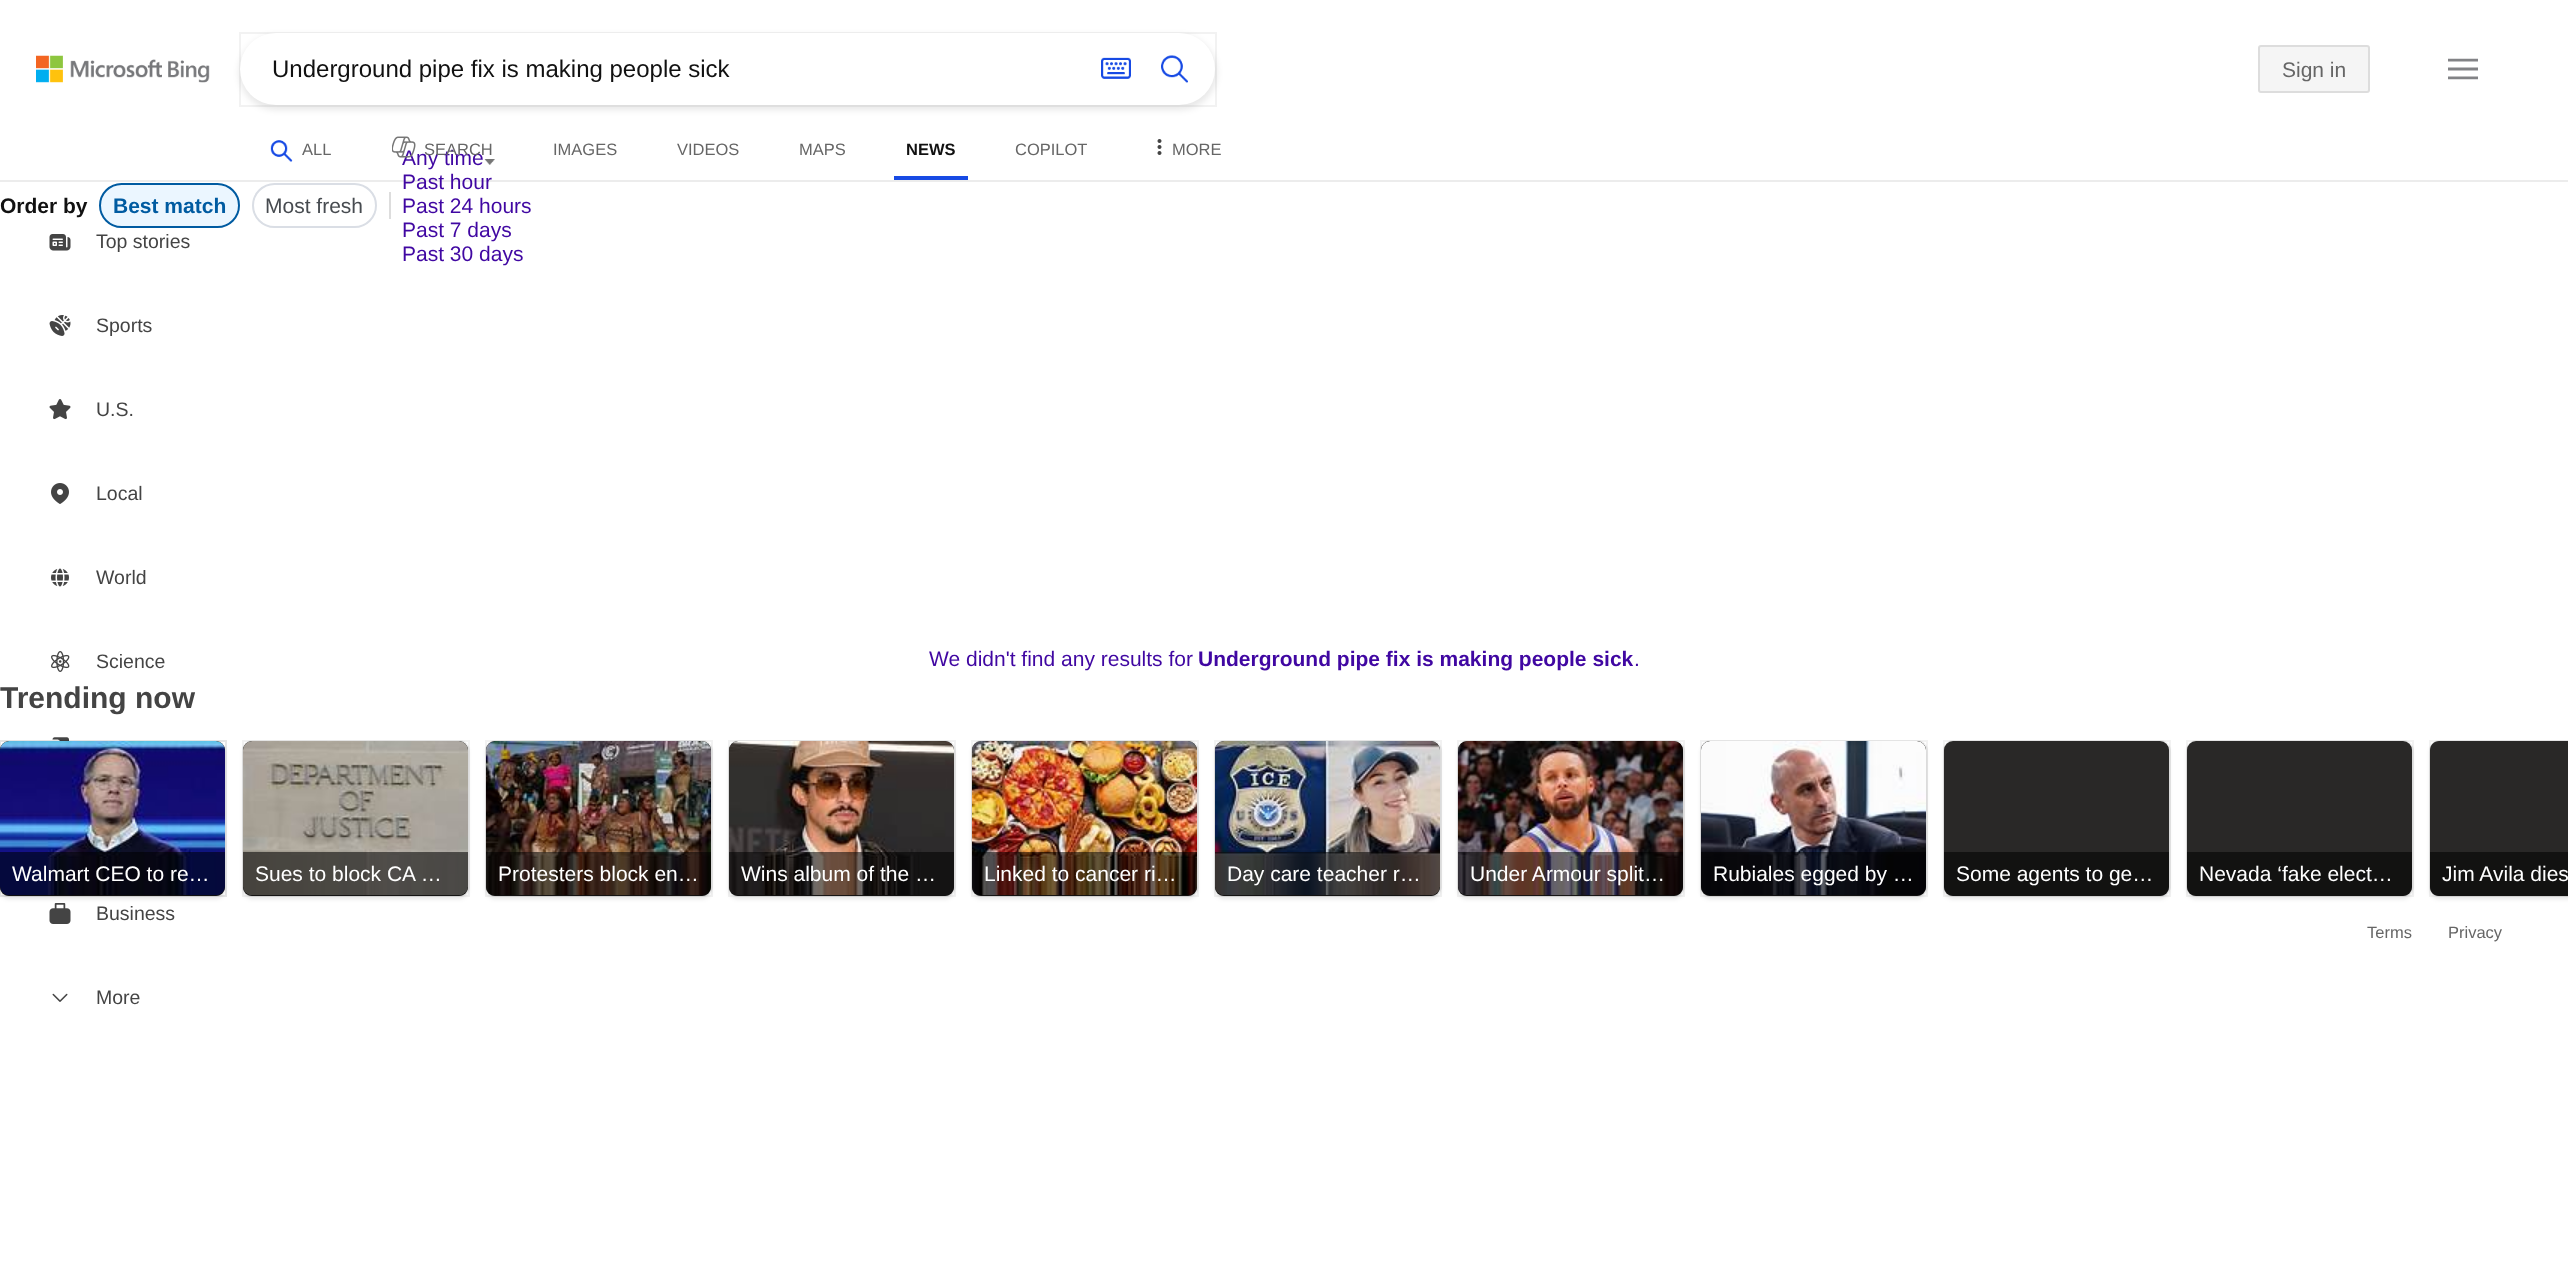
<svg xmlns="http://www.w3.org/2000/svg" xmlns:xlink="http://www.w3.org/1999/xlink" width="2568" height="1266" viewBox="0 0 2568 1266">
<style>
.cls-1{font:24px Liberation Sans;fill:#111111}
.cls-2{font:21px Liberation Sans;fill:#666666}
.cls-3{font:16.5px Liberation Sans;fill:#666666}
.cls-4{font:bold 16.5px Liberation Sans;fill:#111111}
.cls-5{font:bold 21px Liberation Sans;fill:#111111}
.cls-6{font:bold 21px Liberation Sans;fill:#005ba1}
.cls-7{font:21px Liberation Sans;fill:#474b50}
.cls-8{font:21px Liberation Sans;fill:#4007a2}
.cls-9{font:bold 21px Liberation Sans;fill:#4007a2}
.cls-10{font:bold 30px Liberation Sans;fill:#444444}
.cls-11{font:21px Liberation Sans;fill:#ffffff}
.cls-12{font:19.5px Liberation Sans;fill:#444444}
</style>
<rect width="100%" height="100%" fill="#ffffff"/>
<rect fill="#ececec" x="0" y="180" width="2568" height="2"/>
<image xlink:href="image0.png" x="36" y="55" width="174" height="28"/>
<rect fill="#000000" fill-opacity="0.09" filter="blur(3px)" x="239" y="35" width="978" height="75" rx="37.5"/>
<rect fill="none" stroke="#000000" stroke-opacity="0.05" stroke-width="2" x="240" y="33" width="976" height="73"/>
<rect fill="#ffffff" x="240" y="33" width="975" height="72" rx="36"/>
<image xlink:href="image1.png" x="1101" y="57" width="30" height="22"/>
<image xlink:href="image2.png" x="1161" y="55" width="27" height="28"/>
<rect fill="#f5f5f5" stroke="#dddddd" stroke-width="2" x="2259" y="46" width="110" height="46" rx="2"/>
<image xlink:href="image3.png" x="2448" y="58" width="30" height="22"/>
<image xlink:href="image4.png" x="270" y="140" width="23" height="22"/>
<rect fill="#174ae4" x="894" y="176" width="74" height="4"/>
<image xlink:href="image6.png" x="1157" y="139" width="5" height="16"/>
<rect fill="#ebf6ff" stroke="#005ba1" stroke-width="2" x="100" y="184" width="139" height="43" rx="21.5"/>
<rect fill="none" stroke="#dadee5" stroke-width="2" x="253" y="184" width="123" height="43" rx="21.5"/>
<rect fill="#dddddd" x="389" y="192" width="2" height="27"/>
<image xlink:href="image7.png" x="484" y="159" width="11" height="6"/>
<image xlink:href="image30.png" x="52" y="737" width="17" height="4"/>
<rect fill="none" stroke="#000000" stroke-opacity="0.05" stroke-width="2" x="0" y="741" width="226" height="155"/>
<image xlink:href="image31.png" x="49" y="903" width="22" height="21"/>
<rect fill="#000000" fill-opacity="0.1" filter="blur(2px)" x="0" y="744" width="225" height="155" rx="9"/>
<rect fill="none" stroke="#000000" stroke-opacity="0.05" stroke-width="2" x="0" y="741" width="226" height="155"/>
<rect fill="#292827" x="0" y="741" width="225" height="155" rx="9"/>
<image xlink:href="image8.png" x="0" y="741" width="225" height="117"/>
<image xlink:href="image9.png" x="0" y="858" width="225" height="38"/>
<path fill="#000000" fill-opacity="0.55" d="M0 852H225V887C225 892 221 896 216 896H9C4 896 0 892 0 887Z"/>
<rect fill="none" stroke="#f2f2f2" stroke-width="2" x="243" y="741" width="226" height="155" rx="10"/>
<rect fill="#000000" fill-opacity="0.1" filter="blur(2px)" x="243" y="744" width="225" height="155" rx="9"/>
<rect fill="none" stroke="#000000" stroke-opacity="0.05" stroke-width="2" x="243" y="741" width="226" height="155"/>
<rect fill="#292827" x="243" y="741" width="225" height="155" rx="9"/>
<image xlink:href="image10.png" x="243" y="741" width="225" height="114"/>
<image xlink:href="image11.png" x="243" y="855" width="225" height="41"/>
<path fill="#000000" fill-opacity="0.55" d="M243 852H468V887C468 892 464 896 459 896H252C247 896 243 892 243 887Z"/>
<rect fill="none" stroke="#f2f2f2" stroke-width="2" x="486" y="741" width="226" height="155" rx="10"/>
<rect fill="#000000" fill-opacity="0.1" filter="blur(2px)" x="486" y="744" width="225" height="155" rx="9"/>
<rect fill="none" stroke="#000000" stroke-opacity="0.05" stroke-width="2" x="486" y="741" width="226" height="155"/>
<rect fill="#292827" x="486" y="741" width="225" height="155" rx="9"/>
<image xlink:href="image12.png" x="486" y="741" width="225" height="117"/>
<image xlink:href="image13.png" x="486" y="858" width="225" height="38"/>
<path fill="#000000" fill-opacity="0.55" d="M486 852H711V887C711 892 707 896 702 896H495C490 896 486 892 486 887Z"/>
<rect fill="none" stroke="#f2f2f2" stroke-width="2" x="729" y="741" width="226" height="155" rx="10"/>
<rect fill="#000000" fill-opacity="0.1" filter="blur(2px)" x="729" y="744" width="225" height="155" rx="9"/>
<rect fill="none" stroke="#000000" stroke-opacity="0.05" stroke-width="2" x="729" y="741" width="226" height="155"/>
<rect fill="#292827" x="729" y="741" width="225" height="155" rx="9"/>
<image xlink:href="image14.png" x="729" y="741" width="225" height="117"/>
<image xlink:href="image15.png" x="729" y="858" width="225" height="38"/>
<path fill="#000000" fill-opacity="0.55" d="M729 852H954V887C954 892 950 896 945 896H738C733 896 729 892 729 887Z"/>
<rect fill="none" stroke="#f2f2f2" stroke-width="2" x="972" y="741" width="226" height="155" rx="10"/>
<rect fill="#000000" fill-opacity="0.1" filter="blur(2px)" x="972" y="744" width="225" height="155" rx="9"/>
<rect fill="none" stroke="#000000" stroke-opacity="0.05" stroke-width="2" x="972" y="741" width="226" height="155"/>
<rect fill="#292827" x="972" y="741" width="225" height="155" rx="9"/>
<image xlink:href="image16.png" x="972" y="741" width="225" height="117"/>
<image xlink:href="image17.png" x="972" y="858" width="225" height="38"/>
<path fill="#000000" fill-opacity="0.55" d="M972 852H1197V887C1197 892 1193 896 1188 896H981C976 896 972 892 972 887Z"/>
<rect fill="none" stroke="#f2f2f2" stroke-width="2" x="1215" y="741" width="226" height="155" rx="10"/>
<rect fill="#000000" fill-opacity="0.1" filter="blur(2px)" x="1215" y="744" width="225" height="155" rx="9"/>
<rect fill="none" stroke="#000000" stroke-opacity="0.05" stroke-width="2" x="1215" y="741" width="226" height="155"/>
<rect fill="#292827" x="1215" y="741" width="225" height="155" rx="9"/>
<image xlink:href="image18.png" x="1215" y="741" width="225" height="117"/>
<image xlink:href="image19.png" x="1215" y="858" width="225" height="38"/>
<path fill="#000000" fill-opacity="0.55" d="M1215 852H1440V887C1440 892 1436 896 1431 896H1224C1219 896 1215 892 1215 887Z"/>
<rect fill="none" stroke="#f2f2f2" stroke-width="2" x="1458" y="741" width="226" height="155" rx="10"/>
<rect fill="#000000" fill-opacity="0.1" filter="blur(2px)" x="1458" y="744" width="225" height="155" rx="9"/>
<rect fill="none" stroke="#000000" stroke-opacity="0.05" stroke-width="2" x="1458" y="741" width="226" height="155"/>
<rect fill="#292827" x="1458" y="741" width="225" height="155" rx="9"/>
<image xlink:href="image20.png" x="1458" y="741" width="225" height="117"/>
<image xlink:href="image21.png" x="1458" y="858" width="225" height="38"/>
<path fill="#000000" fill-opacity="0.55" d="M1458 852H1683V887C1683 892 1679 896 1674 896H1467C1462 896 1458 892 1458 887Z"/>
<rect fill="none" stroke="#f2f2f2" stroke-width="2" x="1701" y="741" width="226" height="155" rx="10"/>
<rect fill="#000000" fill-opacity="0.1" filter="blur(2px)" x="1701" y="744" width="225" height="155" rx="9"/>
<rect fill="none" stroke="#000000" stroke-opacity="0.05" stroke-width="2" x="1701" y="741" width="226" height="155"/>
<rect fill="#292827" x="1701" y="741" width="225" height="155" rx="9"/>
<image xlink:href="image22.png" x="1701" y="741" width="225" height="117"/>
<image xlink:href="image23.png" x="1701" y="858" width="225" height="38"/>
<path fill="#000000" fill-opacity="0.55" d="M1701 852H1926V887C1926 892 1922 896 1917 896H1710C1705 896 1701 892 1701 887Z"/>
<rect fill="none" stroke="#f2f2f2" stroke-width="2" x="1944" y="741" width="226" height="155" rx="10"/>
<rect fill="#000000" fill-opacity="0.1" filter="blur(2px)" x="1944" y="744" width="225" height="155" rx="9"/>
<rect fill="none" stroke="#000000" stroke-opacity="0.05" stroke-width="2" x="1944" y="741" width="226" height="155"/>
<rect fill="#292827" x="1944" y="741" width="225" height="155" rx="9"/>
<path fill="#000000" fill-opacity="0.55" d="M1944 852H2169V887C2169 892 2165 896 2160 896H1953C1948 896 1944 892 1944 887Z"/>
<rect fill="none" stroke="#f2f2f2" stroke-width="2" x="2187" y="741" width="226" height="155" rx="10"/>
<rect fill="#000000" fill-opacity="0.1" filter="blur(2px)" x="2187" y="744" width="225" height="155" rx="9"/>
<rect fill="none" stroke="#000000" stroke-opacity="0.05" stroke-width="2" x="2187" y="741" width="226" height="155"/>
<rect fill="#292827" x="2187" y="741" width="225" height="155" rx="9"/>
<path fill="#000000" fill-opacity="0.55" d="M2187 852H2412V887C2412 892 2408 896 2403 896H2196C2191 896 2187 892 2187 887Z"/>
<rect fill="none" stroke="#f2f2f2" stroke-width="2" x="2430" y="741" width="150" height="155" rx="10"/>
<rect fill="#000000" fill-opacity="0.1" filter="blur(2px)" x="2430" y="744" width="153" height="155" rx="9"/>
<rect fill="none" stroke="#000000" stroke-opacity="0.05" stroke-width="2" x="2430" y="741" width="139" height="155"/>
<path fill="#292827" d="M2439 741H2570V896H2439C2434 896 2430 892 2430 887V750C2430 745 2434 741 2439 741Z"/>
<path fill="#000000" fill-opacity="0.55" d="M2430 852H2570V896H2439C2434 896 2430 892 2430 887Z"/>
<image xlink:href="image24.png" x="49" y="234" width="22" height="17"/>
<image xlink:href="image25.png" x="49" y="315" width="22" height="21"/>
<image xlink:href="image26.png" x="49" y="399" width="22" height="21"/>
<image xlink:href="image27.png" x="51" y="483" width="18" height="21"/>
<image xlink:href="image28.png" x="51" y="568" width="18" height="19"/>
<image xlink:href="image29.png" x="51" y="651" width="19" height="21"/>
<image xlink:href="image32.png" x="52" y="993" width="16" height="9"/>
<text class="cls-1" x="272" y="77">Underground pipe fix is making people sick</text>
<text class="cls-2" x="2282" y="77">Sign in</text>
<text class="cls-3" x="302" y="155">ALL</text>
<text class="cls-3" x="553" y="155">IMAGES</text>
<text class="cls-3" x="677" y="155">VIDEOS</text>
<text class="cls-3" x="799" y="155">MAPS</text>
<text class="cls-4" x="906" y="155">NEWS</text>
<text class="cls-3" x="1015" y="155">COPILOT</text>
<text class="cls-3" x="1172" y="155">MORE</text>
<text class="cls-5" x="0" y="213">Order by</text>
<text class="cls-6" x="113" y="213">Best match</text>
<text class="cls-7" x="265" y="213">Most fresh</text>
<text class="cls-8" x="402" y="165">Any time</text>
<image xlink:href="image5.png" x="392" y="136" width="24" height="22"/>
<text class="cls-3" x="424" y="155">SEARCH</text>
<text class="cls-8"><tspan x="402" y="189">Past hour</tspan><tspan x="402" y="213">Past 24 hours</tspan><tspan x="402" y="237">Past 7 days</tspan><tspan x="402" y="261">Past 30 days</tspan></text>
<text class="cls-8" x="929" y="666">We didn't find any results for</text>
<text class="cls-9" x="1198" y="666">Underground pipe fix is making people sick</text>
<text class="cls-8" x="1634" y="666">.</text>
<text class="cls-10" x="0" y="708">Trending now</text>
<text class="cls-11" x="12" y="881">Walmart CEO to re…</text>
<text class="cls-11" x="255" y="881">Sues to block CA …</text>
<text class="cls-11" x="498" y="881">Protesters block en…</text>
<text class="cls-11" x="741" y="881">Wins album of the …</text>
<text class="cls-11" x="984" y="881">Linked to cancer ri…</text>
<text class="cls-11" x="1227" y="881">Day care teacher r…</text>
<text class="cls-11" x="1470" y="881">Under Armour split…</text>
<text class="cls-11" x="1713" y="881">Rubiales egged by …</text>
<text class="cls-11" x="1956" y="881">Some agents to ge…</text>
<text class="cls-11" x="2199" y="881">Nevada ‘fake elect…</text>
<text class="cls-11" x="2442" y="881">Jim Avila dies</text>
<text class="cls-12" x="96" y="248">Top stories</text>
<text class="cls-12" x="96" y="332">Sports</text>
<text class="cls-12" x="96" y="416">U.S.</text>
<text class="cls-12" x="96" y="500">Local</text>
<text class="cls-12" x="96" y="584">World</text>
<text class="cls-12" x="96" y="668">Science</text>
<text class="cls-12" x="96" y="920">Business</text>
<text class="cls-12" x="96" y="1004">More</text>
<text class="cls-3" x="2367" y="938">Terms</text>
<text class="cls-3" x="2448" y="938">Privacy</text>
</svg>
